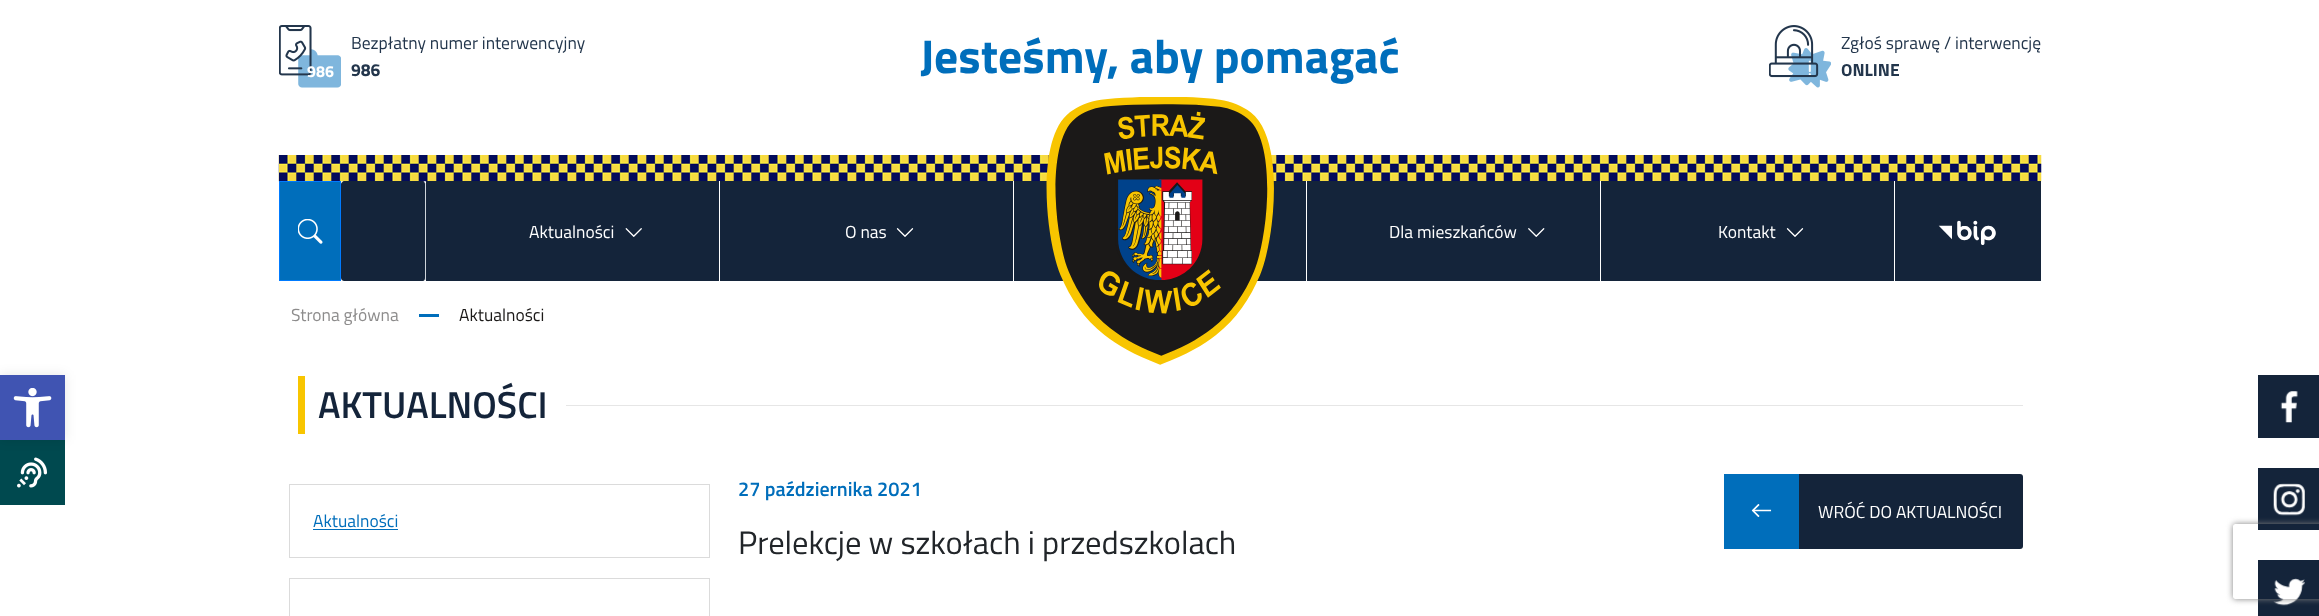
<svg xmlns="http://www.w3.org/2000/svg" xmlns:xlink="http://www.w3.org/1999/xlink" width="2319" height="616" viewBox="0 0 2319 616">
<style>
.cls-1{font:bold 16px Titillium Web;fill:#ffffff}
.cls-2{font:17.5px Titillium Web;fill:#23364c}
.cls-3{font:bold 17.5px Titillium Web;fill:#23364c}
.cls-4{font:bold 47.5px Titillium Web;fill:#006ebb}
.cls-5{font:17.5px Titillium Web;fill:#ffffff}
.cls-6{font:17.5px Titillium Web;fill:#8d8c8c}
.cls-7{font:17.5px Titillium Web;fill:#1b1918}
.cls-8{font:600 37.5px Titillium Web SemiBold;fill:#14243a}
.cls-9{font:17.5px Titillium Web;fill:#006ebb}
.cls-10{font:600 20px Titillium Web SemiBold;fill:#006ebb}
.cls-11{font:32.5px Titillium Web;fill:#212529}
</style>
<defs>
<clipPath id="clip1"><path d="M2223 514H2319V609H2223ZM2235.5 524H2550.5C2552 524 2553 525 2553 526.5V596.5C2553 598 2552 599 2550.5 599H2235.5C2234 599 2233 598 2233 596.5V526.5C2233 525 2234 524 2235.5 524Z" clip-rule="evenodd"/></clipPath>
</defs>
<rect width="100%" height="100%" fill="#ffffff"/>
<rect fill="#00494f" x="0" y="440" width="65" height="65"/>
<image xlink:href="image14.png" x="17" y="457" width="30" height="31"/>
<rect fill="#000000" fill-opacity="0.1" filter="blur(6px)" x="0" y="375" width="65" height="65"/>
<rect fill="#4054b2" x="0" y="375" width="65" height="65"/>
<image xlink:href="image0.png" x="13" y="388" width="39" height="40"/>
<image xlink:href="image1.png" x="279" y="25" width="62" height="63"/>
<image xlink:href="image2.png" x="1769" y="25" width="62" height="63"/>
<image xlink:href="image3.png" x="278" y="155" width="1764" height="27"/>
<rect fill="#006ebb" stroke="#007bff" x="279.5" y="181.5" width="61" height="99"/>
<image xlink:href="image4.png" x="298" y="219" width="25" height="25"/>
<path fill="#14243a" d="M344 181H423C424 181 425 183 425 184V278C425 280 424 281 423 281H344C343 281 341 280 341 278V184C341 183 343 181 344 181Z"/>
<rect fill="#ced4da" x="425" y="183" width="1" height="97"/>
<rect fill="#14243a" x="426" y="181" width="293" height="100"/>
<rect fill="#ffffff" x="719" y="181" width="1" height="1"/>
<image xlink:href="image5.png" x="625" y="228" width="17" height="9"/>
<rect fill="#14243a" x="720" y="181" width="293" height="100"/>
<rect fill="#ffffff" x="1013" y="181" width="1" height="1"/>
<image xlink:href="image6.png" x="896" y="228" width="18" height="9"/>
<rect fill="#14243a" x="1014" y="181" width="586" height="100"/>
<rect fill="#ffffff" x="1306" y="181" width="1" height="100"/>
<image xlink:href="image7.png" x="1046" y="97" width="228" height="268"/>
<rect fill="#ffffff" x="1600" y="181" width="1" height="1"/>
<image xlink:href="image8.png" x="1528" y="228" width="17" height="9"/>
<rect fill="#14243a" x="1601" y="181" width="293" height="100"/>
<rect fill="#ffffff" x="1894" y="181" width="1" height="1"/>
<image xlink:href="image6.png" x="1786" y="228" width="18" height="9"/>
<rect fill="#14243a" x="1895" y="181" width="146" height="100"/>
<image xlink:href="image9.png" x="1938" y="220" width="58" height="25"/>
<rect fill="#006ebb" x="419" y="314" width="20" height="3"/>
<rect fill="#f8c500" x="298" y="376" width="7" height="58"/>
<rect fill="#e6e6e6" x="566" y="405" width="1457" height="1"/>
<rect fill="none" stroke="#dbdbdb" x="289.5" y="484.5" width="420" height="73"/>
<rect fill="#006ebb" x="313" y="529" width="85" height="1"/>
<rect fill="none" stroke="#dbdbdb" x="289.5" y="578.5" width="420" height="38"/>
<rect fill="#14243a" x="1724" y="474" width="299" height="75" rx="3"/>
<rect fill="#006ebb" x="1724" y="474" width="75" height="75"/>
<image xlink:href="image10.png" x="1751" y="504" width="21" height="13"/>
<rect fill="#14243a" x="2258" y="375" width="61" height="63"/>
<image xlink:href="image11.png" x="2280" y="391" width="18" height="32"/>
<rect fill="#14243a" x="2258" y="468" width="61" height="62"/>
<image xlink:href="image12.png" x="2273" y="483" width="32" height="33"/>
<rect fill="#14243a" x="2258" y="560" width="61" height="56"/>
<image xlink:href="image13.png" x="2273" y="578" width="32" height="28"/>
<g clip-path="url(#clip1)">
<rect fill="#808080" filter="blur(3px)" x="2233" y="524" width="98" height="75" rx="2.5"/>
</g>
<text class="cls-1" x="307" y="77">986</text>
<text class="cls-2" x="351" y="49">Bezpłatny numer interwencyjny</text>
<text class="cls-3" x="351" y="76">986</text>
<text class="cls-4" x="920" y="73">Jesteśmy, aby pomagać</text>
<text class="cls-2" x="1841" y="49">Zgłoś sprawę / interwencję</text>
<text class="cls-3" x="1841" y="76">ONLINE</text>
<text class="cls-5" x="529" y="238">Aktualności</text>
<text class="cls-5" x="845" y="238">O nas</text>
<text class="cls-5" x="1389" y="238">Dla mieszkańców</text>
<text class="cls-5" x="1718" y="238">Kontakt</text>
<text class="cls-6" x="291" y="321">Strona główna</text>
<text class="cls-7" x="459" y="321">Aktualności</text>
<text class="cls-8" x="318" y="418">AKTUALNOŚCI</text>
<text class="cls-9" x="313" y="527">Aktualności</text>
<text class="cls-10" x="738" y="496">27 października 2021</text>
<text class="cls-11" x="738" y="554">Prelekcje w szkołach i przedszkolach</text>
<text class="cls-5" x="1818" y="518">WRÓĆ DO AKTUALNOŚCI</text>
</svg>
